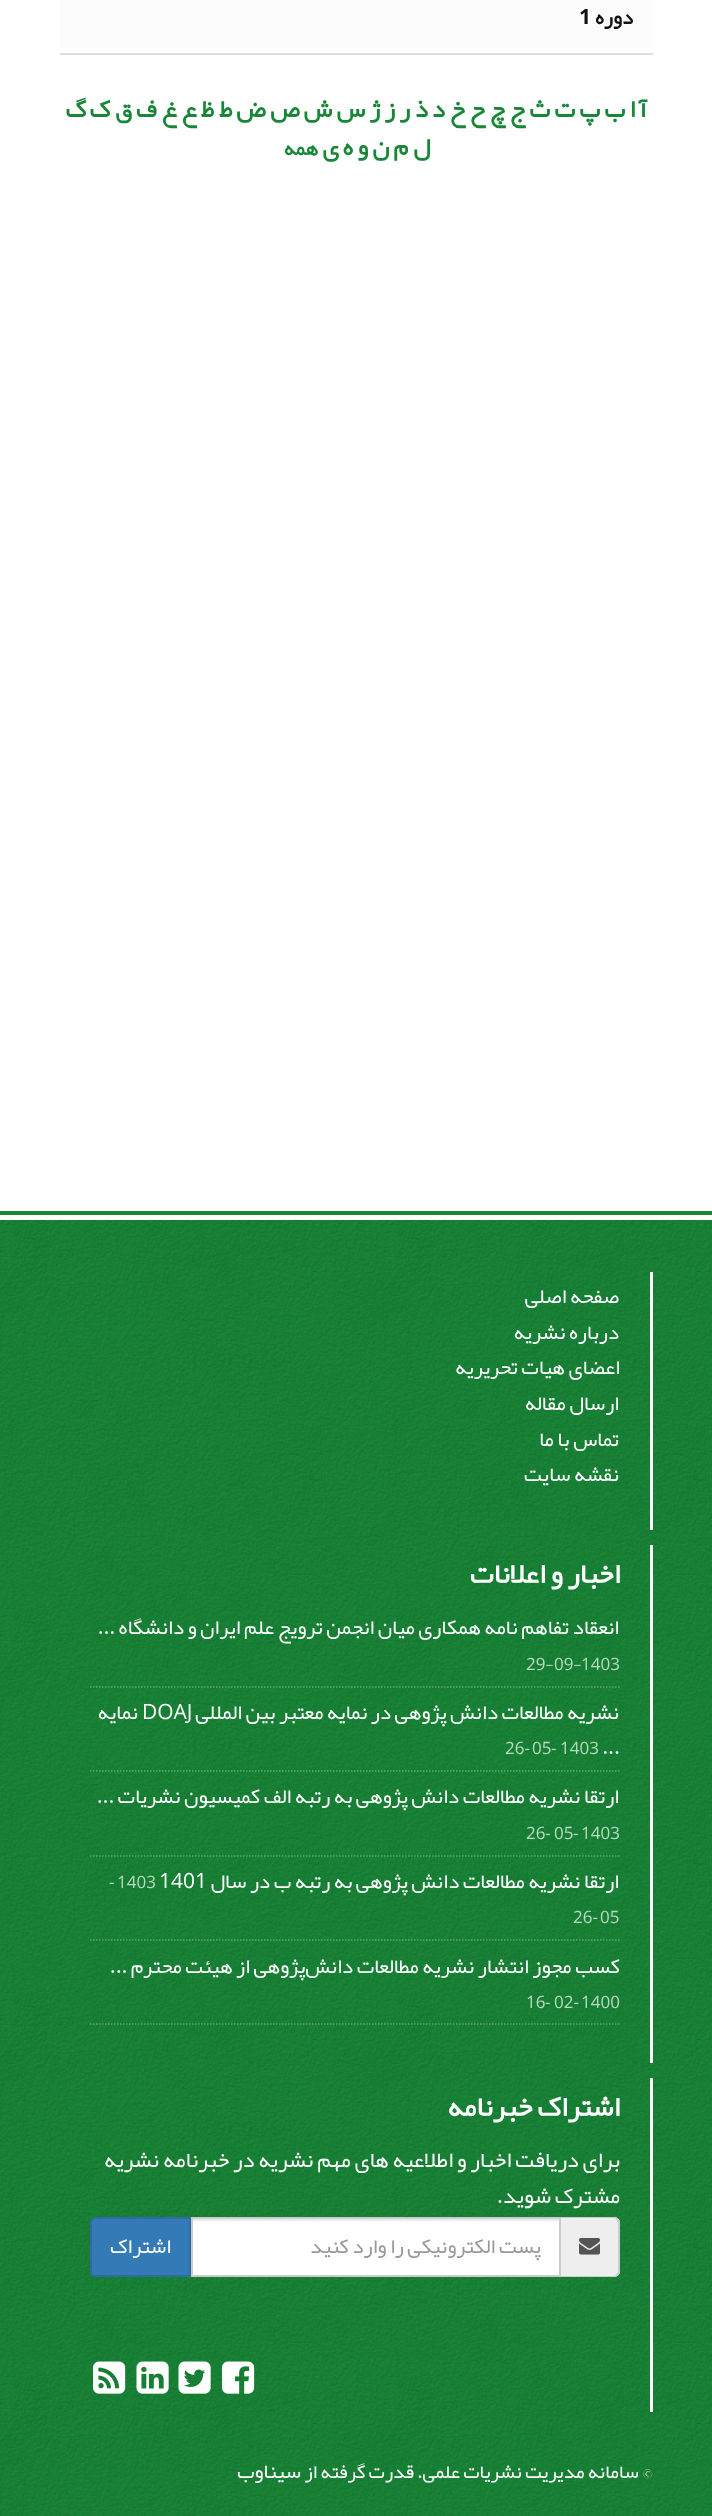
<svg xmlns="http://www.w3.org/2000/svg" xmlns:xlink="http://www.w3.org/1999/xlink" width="712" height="2516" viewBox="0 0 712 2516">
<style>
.cls-1{font:bold 21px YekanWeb;direction:rtl;fill:#111111}
.cls-2{font:bold 21px Open Sans;fill:#111111}
.cls-3{font:bold 25px YekanWeb;direction:rtl;fill:#198738}
.cls-4{font:bold 21px YekanWeb;direction:rtl;fill:#198738}
.cls-5{font:21px YekanWeb;direction:rtl;fill:#ffffff}
.cls-6{font:bold 28.5px YekanWeb;direction:rtl;fill:#ffffff}
.cls-7{font:17px Open Sans;fill:#bad9c2}
.cls-8{font:17px YekanWeb;fill:#bad9c2}
.cls-9{font:21px Open Sans;fill:#ffffff}
.cls-10{font:21px YekanWeb;fill:#ffffff}
.cls-11{font:22.25px YekanWeb;direction:rtl;fill:#ffffff}
.cls-12{font:21px YekanWeb;direction:rtl;fill:#999999}
.cls-13{font:19.5px YekanWeb;direction:rtl;fill:#ffffff}
</style>
<rect width="100%" height="100%" fill="#ffffff"/>
<rect fill="#dddddd" x="60" y="53" width="593" height="2"/>
<rect fill="#fcfcfc" x="60" y="0" width="593" height="48"/>
<rect fill="#198738" x="0" y="1211" width="712" height="4"/>
<rect fill="#198738" x="0" y="1220" width="712" height="1296"/>
<image xlink:href="image0.png" x="0" y="1219" width="712" height="1297"/>
<rect fill="#ffffff" x="650" y="1272" width="3" height="258"/>
<rect fill="#ffffff" x="650" y="1545" width="3" height="518"/>
<path fill="none" stroke="#ffffff" stroke-opacity="0.3" stroke-width="1.5" stroke-dasharray="1.5 1.5" d="M90 1687H619.5"/>
<path fill="none" stroke="#ffffff" stroke-opacity="0.3" stroke-width="1.5" stroke-dasharray="1.5 1.5" d="M90 1771H619.5"/>
<path fill="none" stroke="#ffffff" stroke-opacity="0.3" stroke-width="1.5" stroke-dasharray="1.5 1.5" d="M90 1856H619.5"/>
<path fill="none" stroke="#ffffff" stroke-opacity="0.3" stroke-width="1.5" stroke-dasharray="1.5 1.5" d="M90 1940H619.5"/>
<path fill="none" stroke="#ffffff" stroke-opacity="0.3" stroke-width="1.5" stroke-dasharray="1.5 1.5" d="M90 2024H619.5"/>
<rect fill="#ffffff" x="650" y="2078" width="3" height="334"/>
<path fill="#eeeeee" d="M561 2217H614C617.5 2217 620 2219.5 620 2223V2271C620 2274.5 617.5 2277 614 2277H561Z"/>
<path fill="#cccccc" fill-rule="evenodd" d="M561 2217H614C617 2217 620 2220 620 2223V2271C620 2274 617 2277 614 2277H561ZM561 2218H614C616 2218 618 2221 618 2223V2271C618 2273 616 2276 614 2276H561Z"/>
<image xlink:href="image1.png" x="579" y="2238" width="21" height="17"/>
<rect fill="#ffffff" x="193" y="2221" width="366" height="54"/>
<rect fill="#ececec" x="192" y="2219" width="368" height="2"/>
<rect fill="none" stroke="#cccccc" stroke-width="2" x="192" y="2218" width="368" height="58"/>
<path fill="#337ab7" stroke="#2e6da4" stroke-width="2" d="M96 2218H190V2276H96C93 2276 91 2274 91 2271V2223C91 2220 93 2218 96 2218Z"/>
<image xlink:href="image2.png" x="222" y="2361" width="33" height="33"/>
<image xlink:href="image3.png" x="178" y="2361" width="33" height="33"/>
<image xlink:href="image4.png" x="136" y="2361" width="33" height="33"/>
<image xlink:href="image5.png" x="93" y="2361" width="33" height="33"/>
<text class="cls-1" x="633" y="24">دوره</text>
<text class="cls-2" x="579" y="24">1</text>
<text class="cls-3" x="647" y="117">آ</text>
<text class="cls-3" x="635" y="117">ا</text>
<text class="cls-3" x="625" y="117">ب</text>
<text class="cls-3" x="600" y="117">پ</text>
<text class="cls-3" x="575" y="117">ت</text>
<text class="cls-3" x="550" y="117">ث</text>
<text class="cls-3" x="525" y="117">ج</text>
<text class="cls-3" x="505" y="117">چ</text>
<text class="cls-3" x="485" y="117">ح</text>
<text class="cls-3" x="465" y="117">خ</text>
<text class="cls-3" x="445" y="117">د</text>
<text class="cls-3" x="428" y="117">ذ</text>
<text class="cls-3" x="410" y="117">ر</text>
<text class="cls-3" x="395" y="117">ز</text>
<text class="cls-3" x="380" y="117">ژ</text>
<text class="cls-3" x="365" y="117">س</text>
<text class="cls-3" x="332" y="117">ش</text>
<text class="cls-3" x="300" y="117">ص</text>
<text class="cls-3" x="266" y="117">ض</text>
<text class="cls-3" x="232" y="117">ط</text>
<text class="cls-3" x="214" y="117">ظ</text>
<text class="cls-3" x="197" y="117">ع</text>
<text class="cls-3" x="177" y="117">غ</text>
<text class="cls-3" x="157" y="117">ف</text>
<text class="cls-3" x="132" y="117">ق</text>
<text class="cls-3" x="110" y="117">ک</text>
<text class="cls-3" x="86" y="117">گ</text>
<text class="cls-3" x="430" y="155">ل</text>
<text class="cls-3" x="408" y="155">م</text>
<text class="cls-3" x="389" y="155">ن</text>
<text class="cls-3" x="368" y="155">و</text>
<text class="cls-3" x="353" y="155">ه</text>
<text class="cls-3" x="339" y="155">ی</text>
<text class="cls-4" x="318" y="155">همه</text>
<text class="cls-5"><tspan x="619" y="1303">صفحه اصلی</tspan><tspan x="619" y="1339">درباره نشریه</tspan></text>
<text class="cls-5" x="620" y="1374">اعضای هیات تحریریه</text>
<text class="cls-5"><tspan x="619" y="1410">ارسال مقاله</tspan><tspan x="619" y="1446">تماس با ما</tspan><tspan x="619" y="1481">نقشه سایت</tspan></text>
<text class="cls-6" x="620" y="1583">اخبار و اعلانات</text>
<text class="cls-5" x="619" y="1634">انعقاد تفاهم نامه همکاری میان انجمن ترویج علم ایران و دانشگاه ...</text>
<text class="cls-7" x="581" y="1670">1403</text>
<text class="cls-8" x="573" y="1670">-</text>
<text class="cls-7" x="554" y="1670">09</text>
<text class="cls-8" x="545" y="1670">-</text>
<text class="cls-7" x="526" y="1670">29</text>
<text class="cls-5" x="619" y="1719">نشریه مطالعات دانش پژوهی در نمایه معتبر بین المللی</text>
<text class="cls-9" x="142" y="1719">DOAJ</text>
<text class="cls-5" x="138" y="1719">نمایه</text>
<text class="cls-7" x="560" y="1754">1403</text>
<text class="cls-7" x="551" y="1754">-</text>
<text class="cls-7" x="532" y="1754">05</text>
<text class="cls-7" x="505" y="1754">26-</text>
<text class="cls-10" x="602" y="1754">...</text>
<text class="cls-5" x="619" y="1803">ارتقا نشریه مطالعات دانش پژوهی به رتبه الف کمیسیون نشریات ...</text>
<text class="cls-7" x="581" y="1839">1403</text>
<text class="cls-7" x="573" y="1839">-</text>
<text class="cls-7" x="554" y="1839">05</text>
<text class="cls-7" x="545" y="1839">-</text>
<text class="cls-7" x="526" y="1839">26</text>
<text class="cls-5" x="619" y="1888">ارتقا نشریه مطالعات دانش پژوهی به رتبه ب در سال</text>
<text class="cls-9" x="159" y="1888">1401</text>
<text class="cls-7" x="117" y="1888">1403</text>
<text class="cls-7" x="109" y="1888">-</text>
<text class="cls-7" x="600" y="1923">05</text>
<text class="cls-7" x="573" y="1923">26-</text>
<text class="cls-5" x="620" y="1973">کسب مجوز انتشار نشریه مطالعات دانش‌پژوهی از هیئت محترم ...</text>
<text class="cls-7" x="581" y="2008">1400</text>
<text class="cls-7" x="554" y="2008">02-</text>
<text class="cls-7" x="545" y="2008">-</text>
<text class="cls-7" x="526" y="2008">16</text>
<text class="cls-6" x="620" y="2116">اشتراک خبرنامه</text>
<text class="cls-11"><tspan x="620" y="2167">برای دریافت اخبار و اطلاعیه های مهم نشریه در خبرنامه نشریه</tspan><tspan x="620" y="2203">مشترک شوید.</tspan></text>
<text class="cls-12" x="541" y="2253">پست الکترونیکی را وارد کنید</text>
<text class="cls-5" x="171" y="2253">اشتراک</text>
<text class="cls-13" x="652" y="2478">© سامانه مدیریت نشریات علمی.</text>
<text class="cls-13" x="414" y="2478">قدرت گرفته از</text>
<text class="cls-5" x="301" y="2478">سیناوب</text>
</svg>
